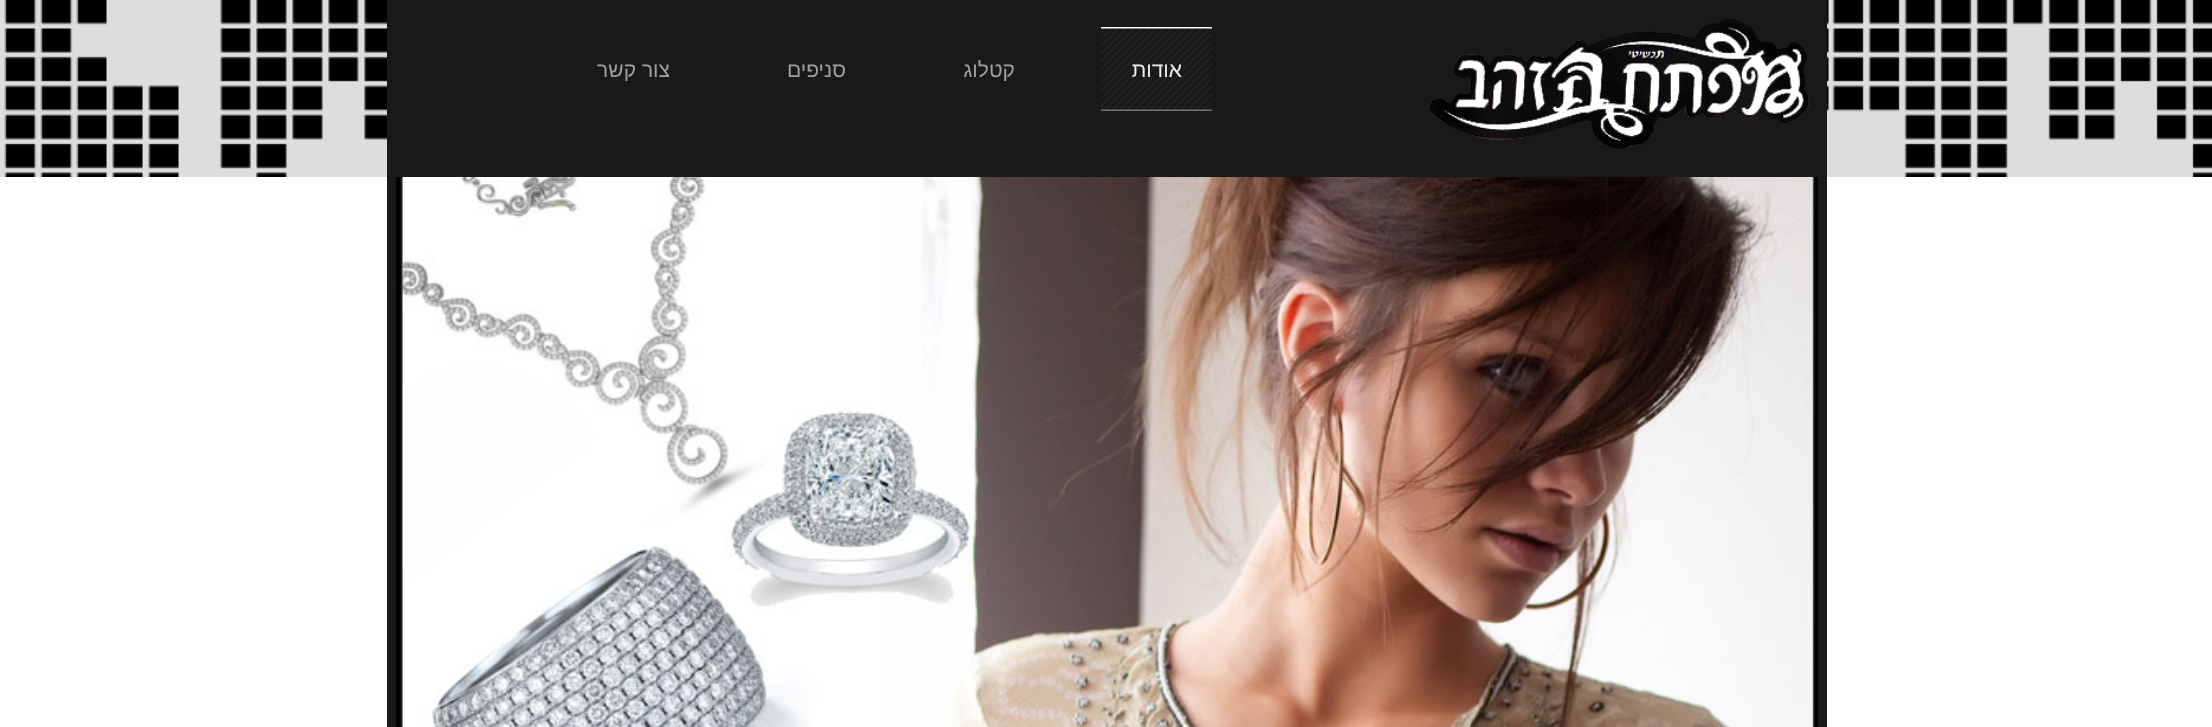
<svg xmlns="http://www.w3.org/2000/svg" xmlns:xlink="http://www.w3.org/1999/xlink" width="2212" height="727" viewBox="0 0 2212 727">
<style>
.cls-1{font:21px Liberation Sans;direction:rtl;fill:#ececec}
.cls-2{font:21px Liberation Sans;direction:rtl;fill:#a0a0a0}
</style>
<rect width="100%" height="100%" fill="#ffffff"/>
<image xlink:href="image0.png" x="0" y="0" width="2212" height="177"/>
<rect fill="#191919" x="387" y="0" width="1440" height="727"/>
<image xlink:href="image1.png" x="1428" y="18" width="382" height="133"/>
<image xlink:href="image2.png" x="1101" y="27" width="111" height="84"/>
<image xlink:href="image3.png" x="396" y="177" width="1422" height="550"/>
<text class="cls-1" x="1182" y="77">אודות</text>
<text class="cls-2" x="1015" y="77">קטלוג</text>
<text class="cls-2" x="846" y="77">סניפים</text>
<text class="cls-2" x="670" y="77">צור קשר</text>
</svg>
